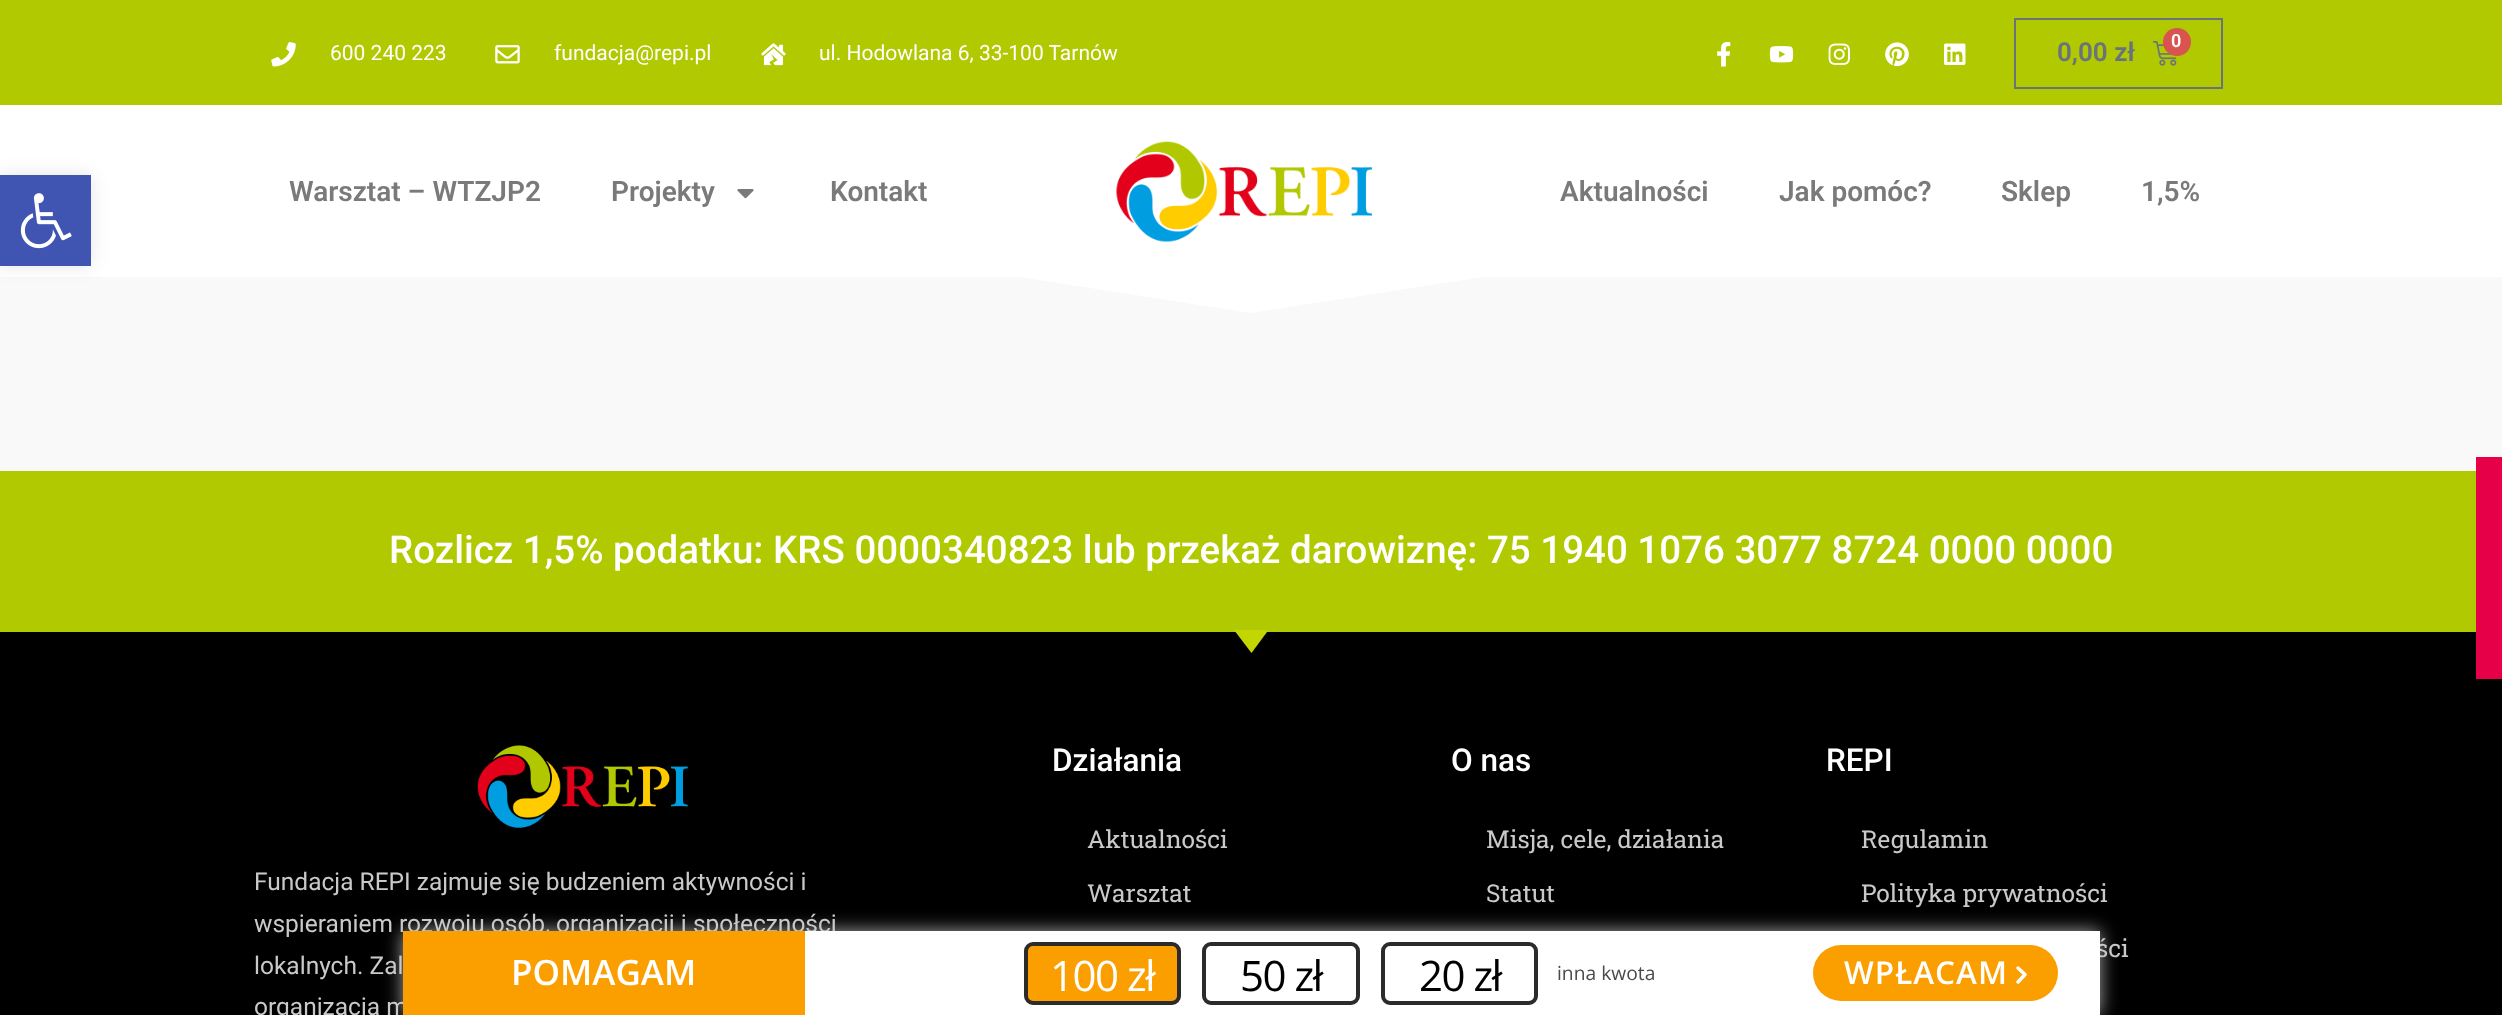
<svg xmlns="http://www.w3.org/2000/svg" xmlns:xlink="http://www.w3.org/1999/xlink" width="2502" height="1015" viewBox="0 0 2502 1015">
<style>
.cls-1{font:21px Roboto;fill:#ffffff}
.cls-2{font:600 26px Roboto;fill:#69727d}
.cls-3{font:600 18px Roboto;fill:#ffffff}
.cls-4{font:600 28px Roboto;fill:#7a7a7a}
.cls-5{font:500 38.5px Roboto;fill:#ffffff}
.cls-6{font:24.5px Roboto;fill:#c9c9c9}
.cls-7{font:500 31.5px Roboto;fill:#ffffff}
.cls-8{font:24.5px Roboto Slab;fill:#c9c9c9}
.cls-9{font:600 35px Open Sans;fill:#ffffff}
.cls-10{font:42px Open Sans;letter-spacing:-1.5px;fill:#ffffff}
.cls-11{font:42px Open Sans;letter-spacing:-1.5px;fill:#000000}
.cls-12{font:19.25px Open Sans;fill:#4a4a4a}
.cls-13{font:600 31.5px Open Sans;letter-spacing:1px;fill:#ffffff}
</style>
<rect width="100%" height="100%" fill="#f9f9f9"/>
<rect fill="#ffffff" x="0" y="118" width="2502" height="159"/>
<path fill="#ffffff" d="M1251 313L-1 118V105H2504V118Z"/>
<rect fill="#000000" fill-opacity="0.1" filter="blur(9px)" x="0" y="175" width="91" height="91"/>
<rect fill="#4054b2" x="0" y="175" width="91" height="91"/>
<image xlink:href="image0.png" x="20" y="193" width="52" height="56"/>
<rect fill="#b1c900" x="0" y="0" width="2502" height="105"/>
<image xlink:href="image1.png" x="271" y="42" width="25" height="25"/>
<image xlink:href="image2.png" x="495" y="45" width="25" height="19"/>
<image xlink:href="image3.png" x="761" y="43" width="25" height="23"/>
<image xlink:href="image4.png" x="1717" y="42" width="14" height="25"/>
<image xlink:href="image5.png" x="1769" y="46" width="25" height="17"/>
<image xlink:href="image6.png" x="1828" y="43" width="22" height="22"/>
<image xlink:href="image7.png" x="1885" y="42" width="24" height="25"/>
<image xlink:href="image8.png" x="1944" y="43" width="22" height="22"/>
<rect fill="none" stroke="#69727d" stroke-width="2" x="2015" y="19" width="207" height="69"/>
<image xlink:href="image9.png" x="2153" y="41" width="24" height="25"/>
<circle fill="#d9534f" cx="2177" cy="42" r="14"/>
<image xlink:href="image10.png" x="737" y="189" width="17" height="10"/>
<image xlink:href="image11.png" x="1116" y="141" width="256" height="101"/>
<rect fill="#b1c900" x="0" y="471" width="2476" height="161"/>
<rect fill="#000000" x="0" y="632" width="2502" height="383"/>
<path fill="#c4d602" d="M1251.5 653L1234 630H1268.5Z"/>
<image xlink:href="image12.png" x="477" y="745" width="211" height="83"/>
<rect fill="#e50048" x="2476" y="457" width="26" height="222"/>
<rect fill="#aaaaaa" filter="blur(9px)" x="403" y="931" width="1697" height="84"/>
<text class="cls-1" x="330" y="60">600 240 223</text>
<text class="cls-1" x="554" y="60">fundacja@repi.pl</text>
<text class="cls-1" x="819" y="60">ul. Hodowlana 6, 33-100 Tarnów</text>
<text class="cls-2" x="2057" y="61">0,00 zł</text>
<text class="cls-3" x="2171" y="47">0</text>
<text class="cls-4" x="289" y="201">Warsztat – WTZJP2</text>
<text class="cls-4" x="611" y="201">Projekty</text>
<text class="cls-4" x="830" y="201">Kontakt</text>
<text class="cls-4" x="1560" y="201">Aktualności</text>
<text class="cls-4" x="1779" y="201">Jak pomóc?</text>
<text class="cls-4" x="2001" y="201">Sklep</text>
<text class="cls-4" x="2141" y="201">1,5%</text>
<text class="cls-5" x="389" y="563">Rozlicz 1,5% podatku: KRS 0000340823 lub przekaż darowiznę: 75 1940 1076 3077 8724 0000 0000</text>
<text class="cls-6"><tspan x="254" y="890">Fundacja REPI zajmuje się budzeniem aktywności i</tspan><tspan x="254" y="932">wspieraniem rozwoju osób, organizacji i społeczności</tspan><tspan x="254" y="974">lokalnych. Zal</tspan><tspan x="254" y="1015">organizacja m</tspan></text>
<text class="cls-7" x="1052" y="771">Działania</text>
<text class="cls-8" x="1087" y="848">Aktualności</text>
<text class="cls-8" x="1087" y="902">Warsztat</text>
<text class="cls-7" x="1451" y="771">O nas</text>
<text class="cls-8" x="1486" y="848">Misja, cele, działania</text>
<text class="cls-8" x="1486" y="902">Statut</text>
<text class="cls-7" x="1826" y="771">REPI</text>
<text class="cls-8" x="1861" y="848">Regulamin</text>
<text class="cls-8" x="1861" y="902">Polityka prywatności</text>
<text class="cls-8" x="2096" y="957">ści</text>
<rect fill="#ffffff" x="805" y="931" width="1295" height="84"/>
<rect fill="#fb9e00" x="403" y="931" width="402" height="84"/>
<text class="cls-9" x="511" y="985">POMAGAM</text>
<rect fill="#fb9e00" stroke="#2d2a2a" stroke-width="4" x="1026" y="944" width="153" height="59" rx="7"/>
<text class="cls-10" x="1050" y="991">100 zł</text>
<rect fill="none" stroke="#2d2a2a" stroke-width="4" x="1204" y="944" width="154" height="59" rx="7"/>
<text class="cls-11" x="1240" y="991">50 zł</text>
<rect fill="none" stroke="#2d2a2a" stroke-width="4" x="1383" y="944" width="153" height="59" rx="7"/>
<text class="cls-11" x="1419" y="991">20 zł</text>
<text class="cls-12" x="1557" y="980">inna kwota</text>
<rect fill="#fb9e00" x="1813" y="945" width="245" height="56" rx="28"/>
<text class="cls-13" x="1844" y="984">WPŁACAM</text>
<path fill="none" stroke="#ffffff" stroke-width="3.5" stroke-linecap="round" stroke-linejoin="round" d="M2018 968L2025 974.5L2018 982"/>
</svg>
